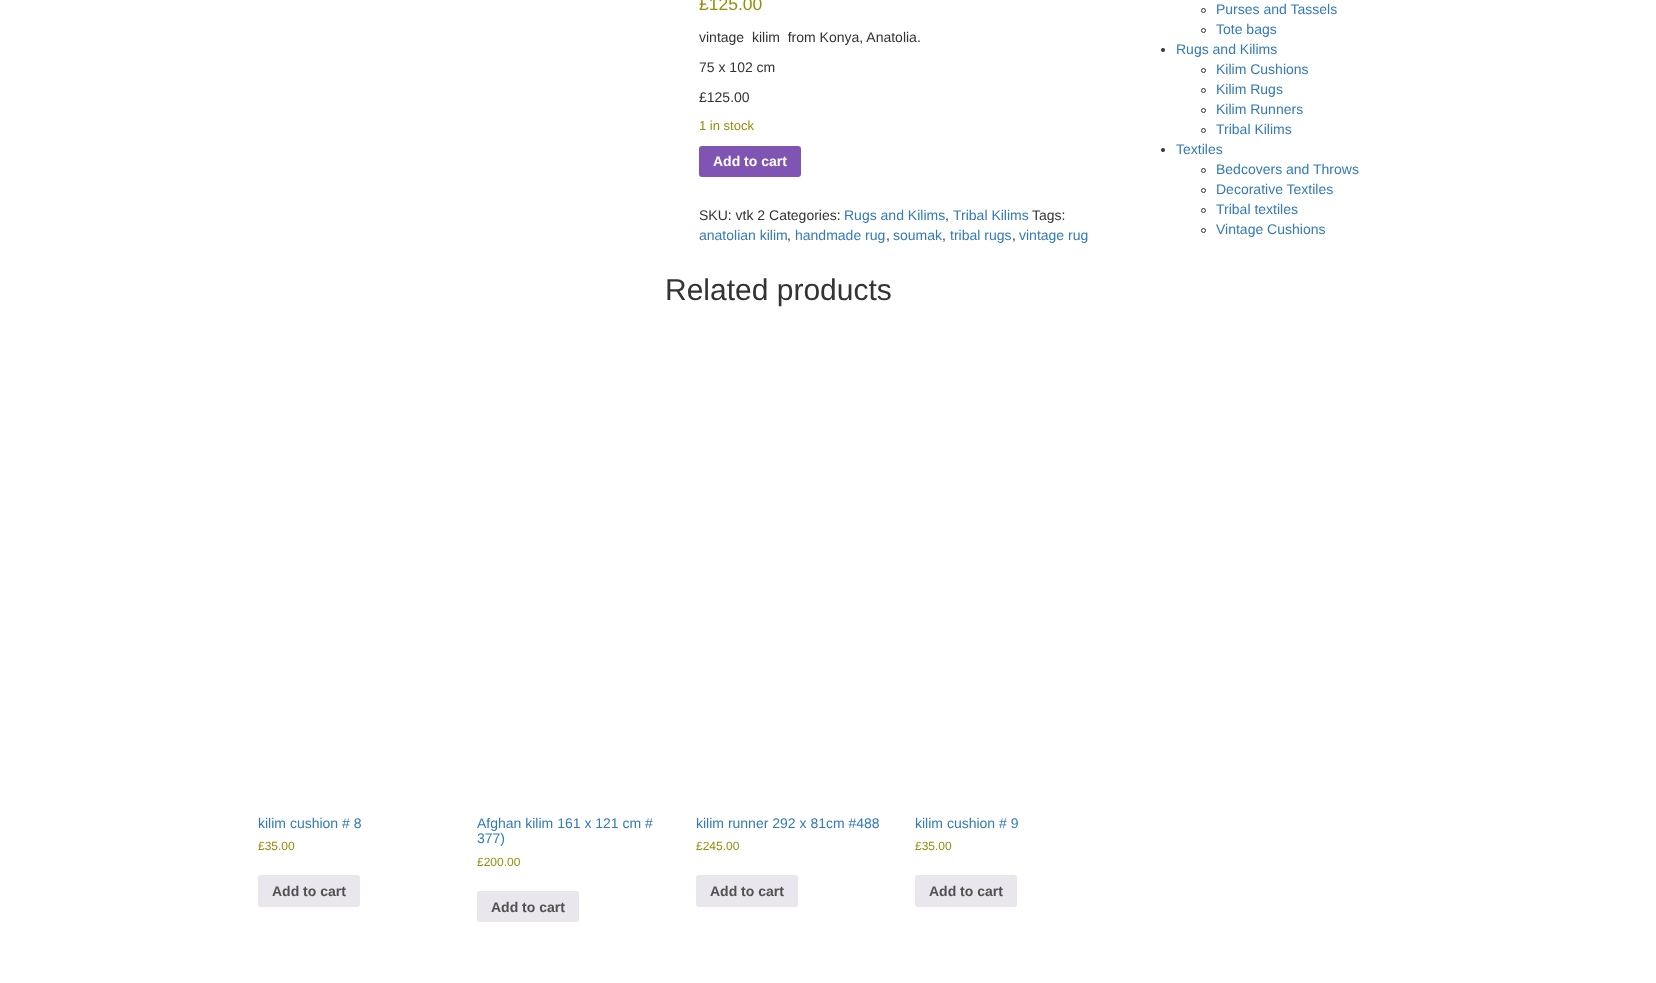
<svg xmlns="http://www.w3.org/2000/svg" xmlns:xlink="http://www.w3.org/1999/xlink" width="1656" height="983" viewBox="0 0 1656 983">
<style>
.cls-1{font:17.5px Liberation Sans;fill:#958e09}
.cls-2{font:14px Liberation Sans;fill:#333333}
.cls-3{font:13px Liberation Sans;fill:#958e09}
.cls-4{font:bold 14px Liberation Sans;fill:#ffffff}
.cls-5{font:14px Liberation Sans;fill:#337ab7}
.cls-6{font:30px Liberation Sans;fill:#333333}
.cls-7{font:12px Liberation Sans;fill:#958e09}
.cls-8{font:bold 14px Liberation Sans;fill:#515151}
</style>
<rect width="100%" height="100%" fill="#ffffff"/>
<rect fill="#7f54b3" x="699" y="146" width="102" height="31" rx="3"/>
<rect fill="#e9e6ed" x="258" y="875" width="102" height="32" rx="3"/>
<rect fill="#e9e6ed" x="477" y="891" width="102" height="31" rx="3"/>
<rect fill="#e9e6ed" x="696" y="875" width="102" height="32" rx="3"/>
<rect fill="#e9e6ed" x="915" y="875" width="102" height="32" rx="3"/>
<circle fill="none" stroke="#333333" cx="1203.5" cy="10.5" r="2"/>
<circle fill="none" stroke="#333333" cx="1203.5" cy="30.5" r="2"/>
<circle fill="#333333" cx="1163" cy="50" r="2"/>
<circle fill="none" stroke="#333333" cx="1203.5" cy="70.5" r="2"/>
<circle fill="none" stroke="#333333" cx="1203.5" cy="90.5" r="2"/>
<circle fill="none" stroke="#333333" cx="1203.5" cy="110.5" r="2"/>
<circle fill="none" stroke="#333333" cx="1203.5" cy="130.5" r="2"/>
<circle fill="#333333" cx="1163" cy="150" r="2"/>
<circle fill="none" stroke="#333333" cx="1203.5" cy="170.5" r="2"/>
<circle fill="none" stroke="#333333" cx="1203.5" cy="190.5" r="2"/>
<circle fill="none" stroke="#333333" cx="1203.5" cy="210.5" r="2"/>
<circle fill="none" stroke="#333333" cx="1203.5" cy="230.5" r="2"/>
<text class="cls-1" x="699" y="10">£125.00</text>
<text class="cls-2" xml:space="preserve" x="699" y="42">vintage  kilim  from Konya, Anatolia.</text>
<text class="cls-2" x="699" y="72">75 x 102 cm</text>
<text class="cls-2" x="699" y="102">£125.00</text>
<text class="cls-3" x="699" y="130">1 in stock</text>
<text class="cls-4" x="713" y="166">Add to cart</text>
<text class="cls-2" x="699" y="220">SKU: vtk 2 Categories:</text>
<text class="cls-5" x="844" y="220">Rugs and Kilims</text>
<text class="cls-2" x="945" y="220">,</text>
<text class="cls-5" x="953" y="220">Tribal Kilims</text>
<text class="cls-2" x="1032" y="220">Tags:</text>
<text class="cls-5" x="699" y="240">anatolian kilim</text>
<text class="cls-2" x="787" y="240">,</text>
<text class="cls-5" x="795" y="240">handmade rug</text>
<text class="cls-2" x="886" y="240">,</text>
<text class="cls-5" x="893" y="240">soumak</text>
<text class="cls-2" x="942" y="240">,</text>
<text class="cls-5" x="950" y="240">tribal rugs</text>
<text class="cls-2" x="1012" y="240">,</text>
<text class="cls-5" x="1019" y="240">vintage rug</text>
<text class="cls-6" x="665" y="300">Related products</text>
<text class="cls-5" x="258" y="828">kilim cushion # 8</text>
<text class="cls-7" x="258" y="850">£35.00</text>
<text class="cls-8" x="272" y="896">Add to cart</text>
<text class="cls-5"><tspan x="477" y="828">Afghan kilim 161 x 121 cm #</tspan><tspan x="477" y="843">377)</tspan></text>
<text class="cls-7" x="477" y="866">£200.00</text>
<text class="cls-8" x="491" y="912">Add to cart</text>
<text class="cls-5" x="696" y="828">kilim runner 292 x 81cm #488</text>
<text class="cls-7" x="696" y="850">£245.00</text>
<text class="cls-8" x="710" y="896">Add to cart</text>
<text class="cls-5" x="915" y="828">kilim cushion # 9</text>
<text class="cls-7" x="915" y="850">£35.00</text>
<text class="cls-8" x="929" y="896">Add to cart</text>
<text class="cls-5"><tspan x="1216" y="14">Purses and Tassels</tspan><tspan x="1216" y="34">Tote bags</tspan></text>
<text class="cls-5" x="1176" y="54">Rugs and Kilims</text>
<text class="cls-5"><tspan x="1216" y="74">Kilim Cushions</tspan><tspan x="1216" y="94">Kilim Rugs</tspan><tspan x="1216" y="114">Kilim Runners</tspan><tspan x="1216" y="134">Tribal Kilims</tspan></text>
<text class="cls-5" x="1176" y="154">Textiles</text>
<text class="cls-5"><tspan x="1216" y="174">Bedcovers and Throws</tspan><tspan x="1216" y="194">Decorative Textiles</tspan><tspan x="1216" y="214">Tribal textiles</tspan><tspan x="1216" y="234">Vintage Cushions</tspan></text>
</svg>
